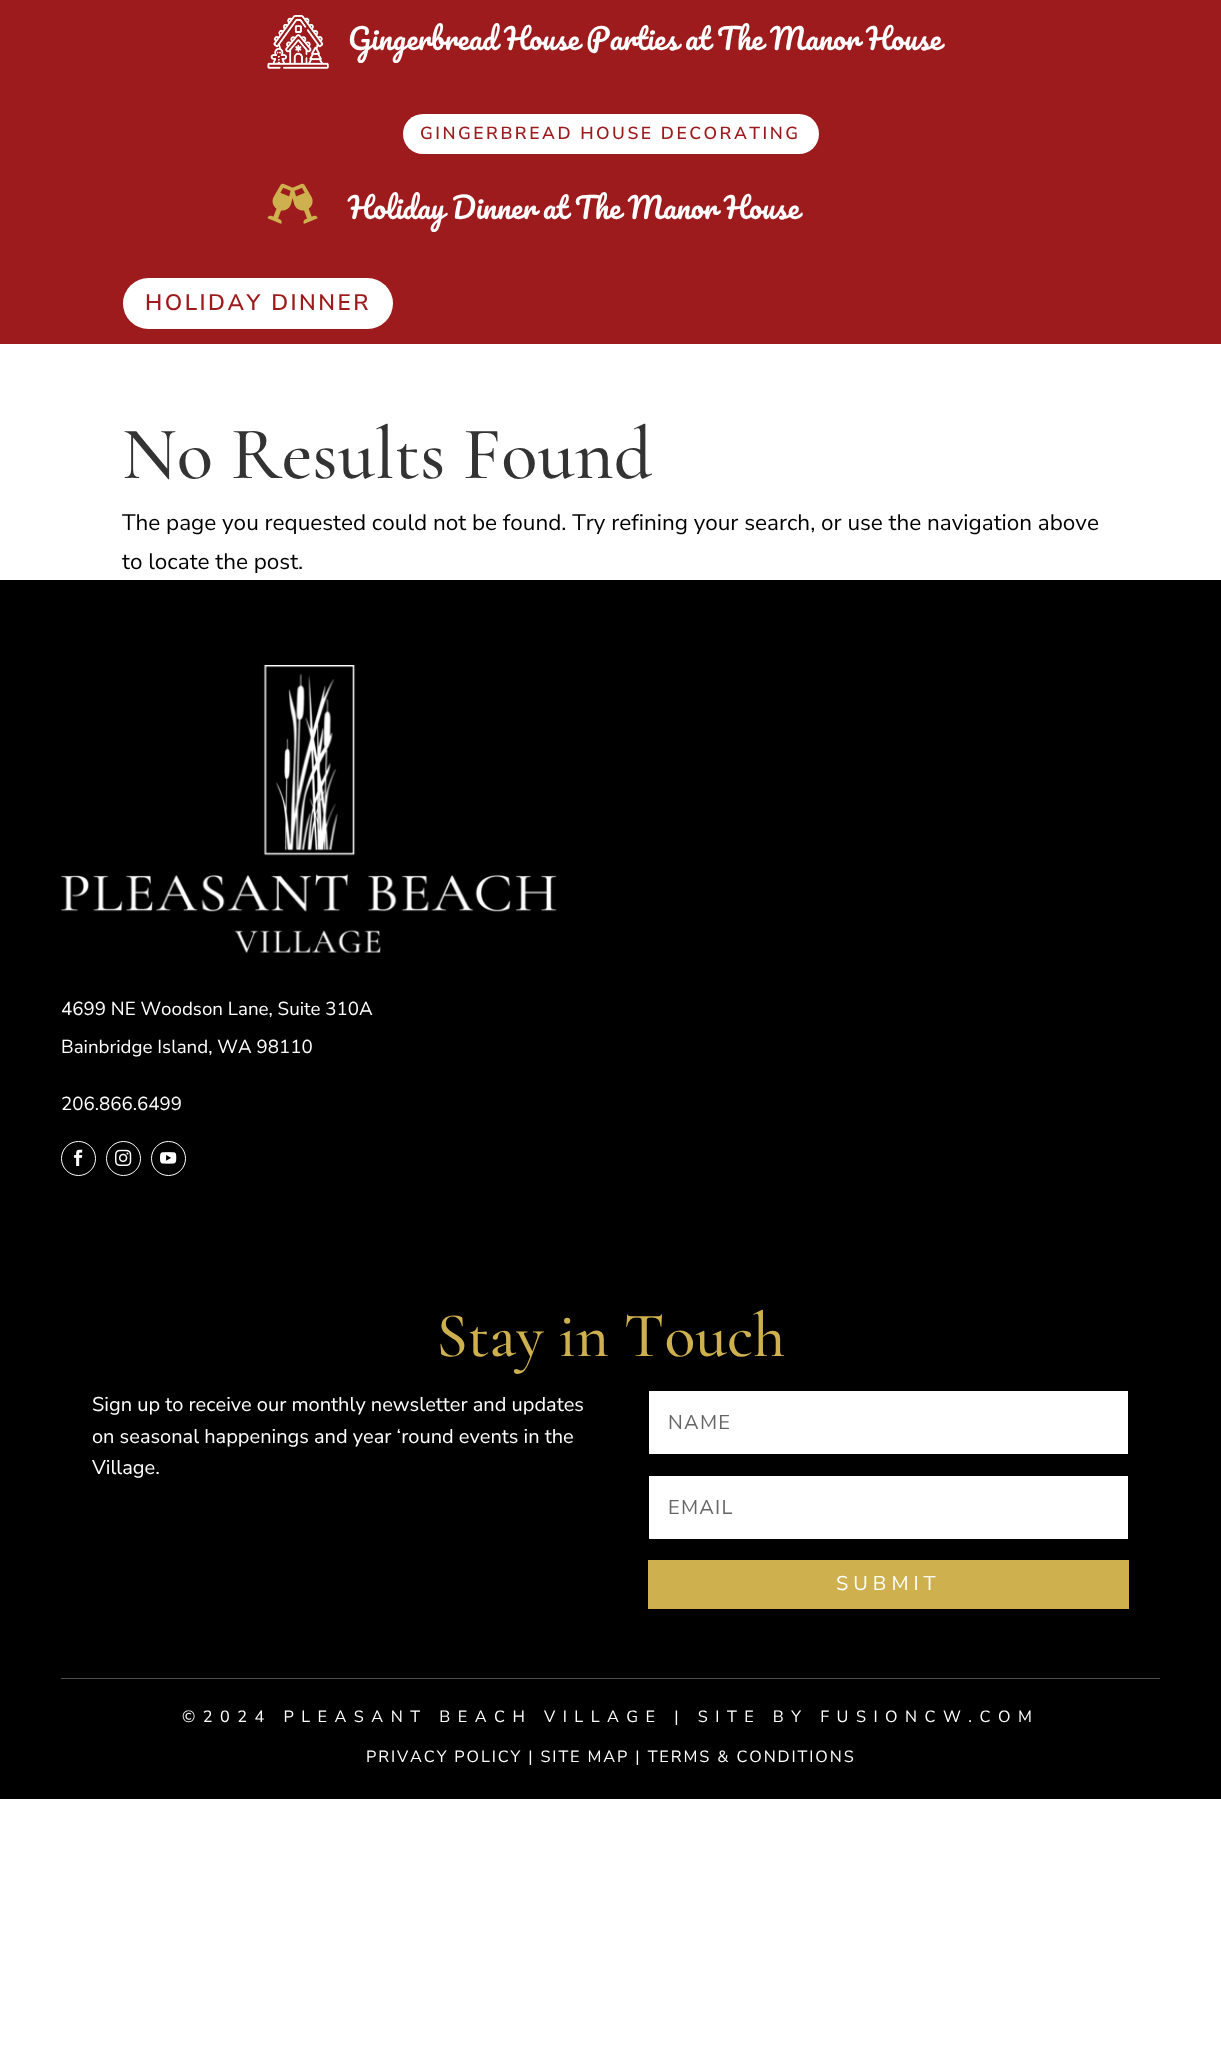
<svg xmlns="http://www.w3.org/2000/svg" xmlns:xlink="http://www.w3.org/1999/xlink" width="1221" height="2070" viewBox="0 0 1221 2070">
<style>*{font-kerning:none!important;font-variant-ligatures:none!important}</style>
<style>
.cls-1{font:28.75px Pacifico;fill:#ffffff}
.cls-2{font:200 17.5px 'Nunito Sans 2';letter-spacing:2.5px;fill:#9d1b1d}
.cls-3{font:200 22.5px 'Nunito Sans 2';letter-spacing:2.5px;fill:#9d1b1d}
.cls-4{font:300 75px Cormorant Garamond;fill:#333333}
.cls-5{font:200 22.5px Nunito Sans;fill:#000000}
.cls-6{font:200 18.75px Nunito Sans;fill:#ffffff}
.cls-7{font:300 63.75px Cormorant Garamond;fill:#ceb04e}
.cls-8{font:200 20px Nunito Sans;fill:#ffffff}
.cls-9{font:200 20px Nunito Sans;letter-spacing:1.25px;fill:#666666}
.cls-10{font:200 20px Nunito Sans;letter-spacing:5px;fill:#ffffff}
.cls-11{font:200 16.25px Nunito Sans;letter-spacing:7.5px;fill:#ffffff}
.cls-12{font:200 16.25px Nunito Sans;letter-spacing:1.9px;fill:#ffffff}
</style>
<rect width="100%" height="100%" fill="#ffffff"/>
<rect fill="#9d1b1d" x="0" y="0" width="1221" height="344"/>
<image xlink:href="image0.png" x="267" y="15" width="62" height="54"/>
<rect fill="#ffffff" x="403" y="114" width="416" height="40" rx="20"/>
<image xlink:href="image1.png" x="267" y="183" width="51" height="41"/>
<rect fill="#ffffff" x="123" y="278" width="270" height="51" rx="25.5"/>
<rect fill="#000000" x="0" y="580" width="1221" height="1219"/>
<image xlink:href="image2.png" x="61" y="665" width="496" height="288"/>
<circle fill="none" stroke="#ffffff" cx="78.5" cy="1158.5" r="17"/>
<image xlink:href="image3.png" x="74" y="1149" width="9" height="17"/>
<circle fill="none" stroke="#ffffff" cx="123.5" cy="1158.5" r="17"/>
<image xlink:href="image4.png" x="115" y="1149" width="17" height="17"/>
<circle fill="none" stroke="#ffffff" cx="168.5" cy="1158.5" r="17"/>
<image xlink:href="image5.png" x="160" y="1152" width="17" height="12"/>
<rect fill="#ffffff" x="649" y="1391" width="479" height="63"/>
<rect fill="#ffffff" x="649" y="1476" width="479" height="63"/>
<rect fill="#ceb04e" x="648" y="1560" width="481" height="49"/>
<rect fill="#4d4d4d" x="61" y="1678" width="1099" height="1"/>
<text class="cls-1" x="348" y="50" word-spacing="-0.5">Gingerbread House Parties at The Manor House</text>
<text class="cls-2" x="420" y="139">GINGERBREAD HOUSE DECORATING</text>
<text class="cls-1" x="348" y="219" word-spacing="-0.5">Holiday Dinner at The Manor House</text>
<text class="cls-3" x="145" y="310">HOLIDAY DINNER</text>
<text class="cls-4" x="122" y="478">No Results Found</text>
<text class="cls-5"><tspan x="122" y="530">The page you requested could not be found. Try refining your search, or use the navigation above</tspan><tspan x="122" y="569">to locate the post.</tspan></text>
<text class="cls-6" x="61" y="1015">4699 NE Woodson Lane, Suite 310A</text>
<text class="cls-6" x="61" y="1053">Bainbridge Island, WA 98110</text>
<text class="cls-6" x="61" y="1110">206.866.6499</text>
<text class="cls-7" x="436" y="1356">Stay in Touch</text>
<text class="cls-8"><tspan x="92" y="1411">Sign up to receive our monthly newsletter and updates</tspan><tspan x="92" y="1443">on seasonal happenings and year ‘round events in the</tspan><tspan x="92" y="1474">Village.</tspan></text>
<text class="cls-9" x="668" y="1429">NAME</text>
<text class="cls-9" x="668" y="1514">EMAIL</text>
<text class="cls-10" x="836" y="1590">SUBMIT</text>
<text class="cls-11" x="182" y="1722">©2024 PLEASANT BEACH VILLAGE | SITE BY FUSIONCW.COM</text>
<text class="cls-12" x="366" y="1762">PRIVACY POLICY | SITE MAP | TERMS &amp; CONDITIONS</text>
</svg>
